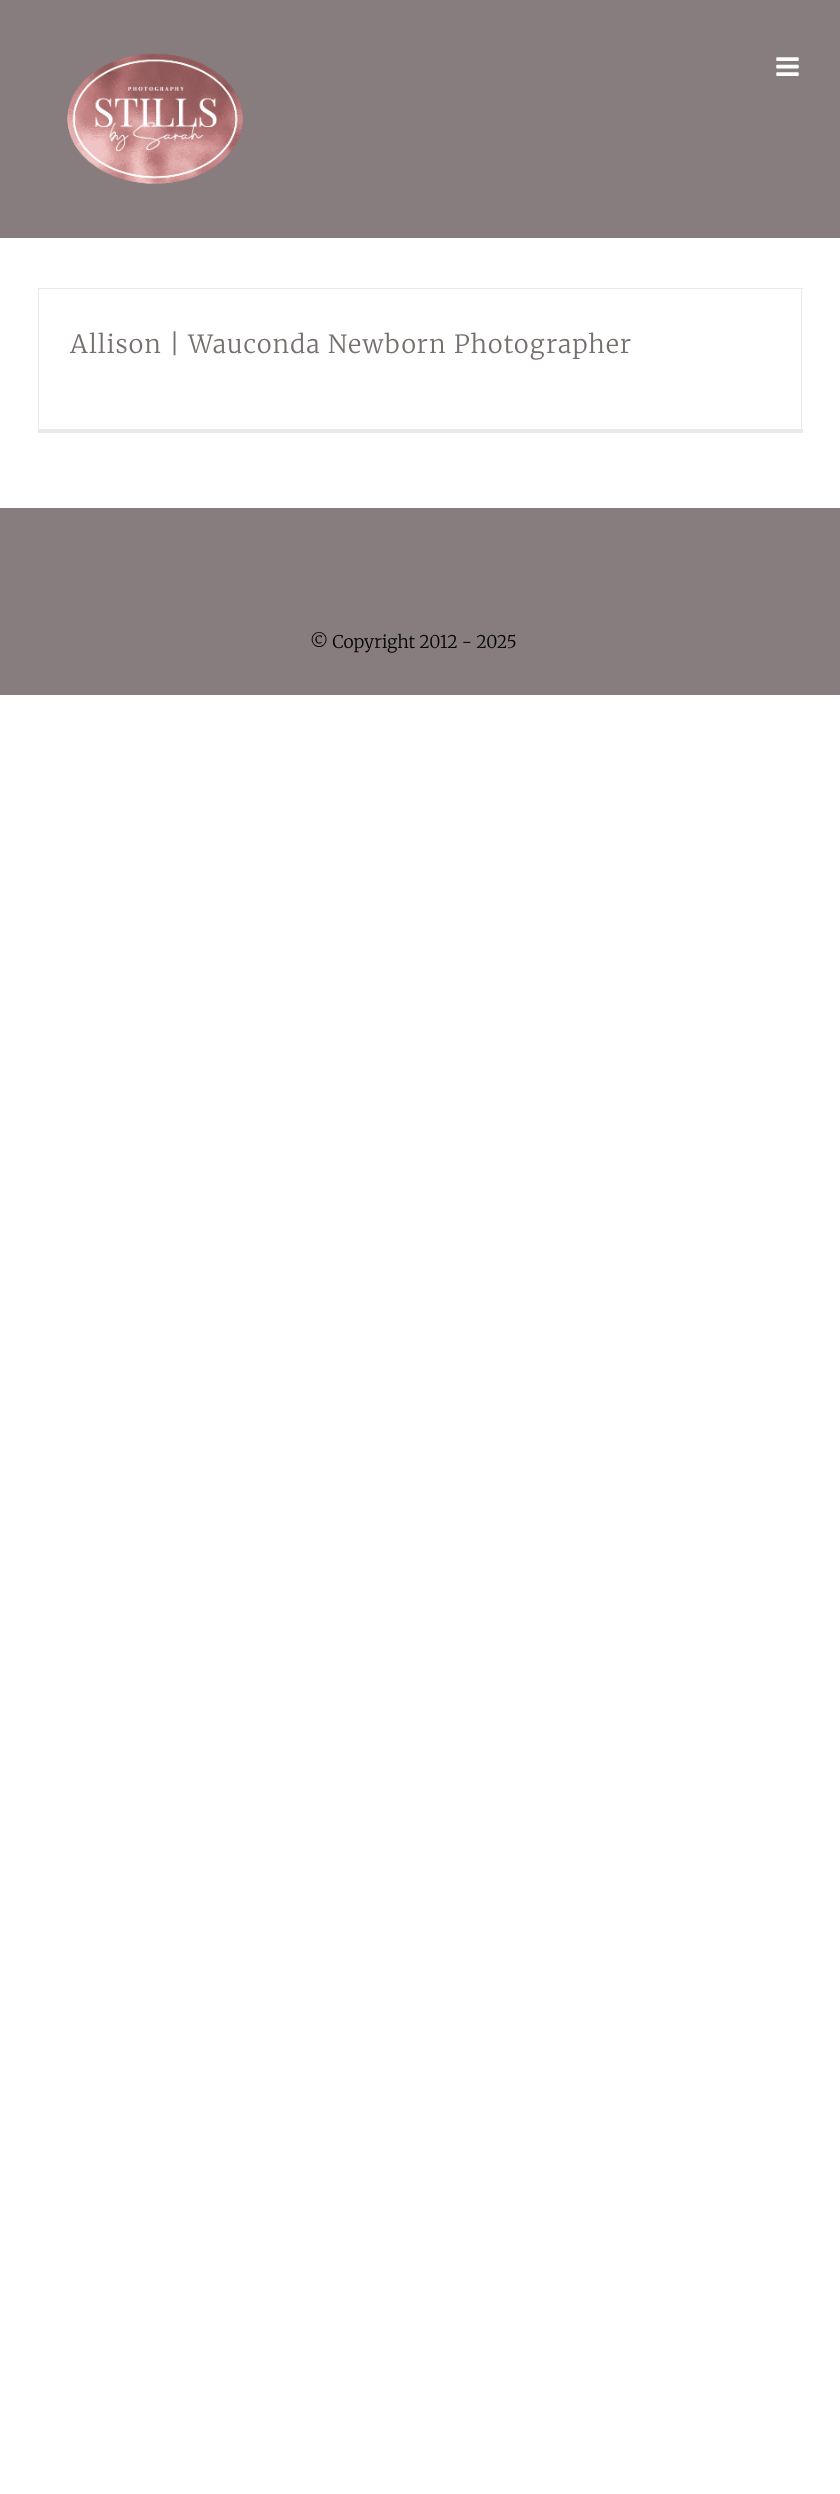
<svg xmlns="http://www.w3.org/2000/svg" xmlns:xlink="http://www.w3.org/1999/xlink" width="840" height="2494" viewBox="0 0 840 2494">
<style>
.cls-1{font:300 25px Merriweather;letter-spacing:1.25px;fill:#756f6e}
.cls-2{font:300 17.5px Merriweather;fill:#000000}
</style>
<rect width="100%" height="100%" fill="#ffffff"/>
<rect fill="#877c7e" x="0" y="0" width="840" height="238"/>
<image xlink:href="image0.png" x="67" y="53" width="176" height="131"/>
<image xlink:href="image1.png" x="776" y="57" width="23" height="19"/>
<rect fill="#ebeaea" x="38" y="288" width="765" height="1"/>
<rect fill="#ebeaea" x="801" y="288" width="1" height="145"/>
<rect fill="#ebeaea" x="38" y="429" width="765" height="4"/>
<rect fill="#ebeaea" x="38" y="288" width="1" height="145"/>
<rect fill="#877c7e" x="0" y="508" width="840" height="187"/>
<text class="cls-1" x="70" y="353">Allison | Wauconda Newborn Photographer</text>
<text class="cls-2" x="310" y="648">© Copyright 2012 - 2025</text>
</svg>
